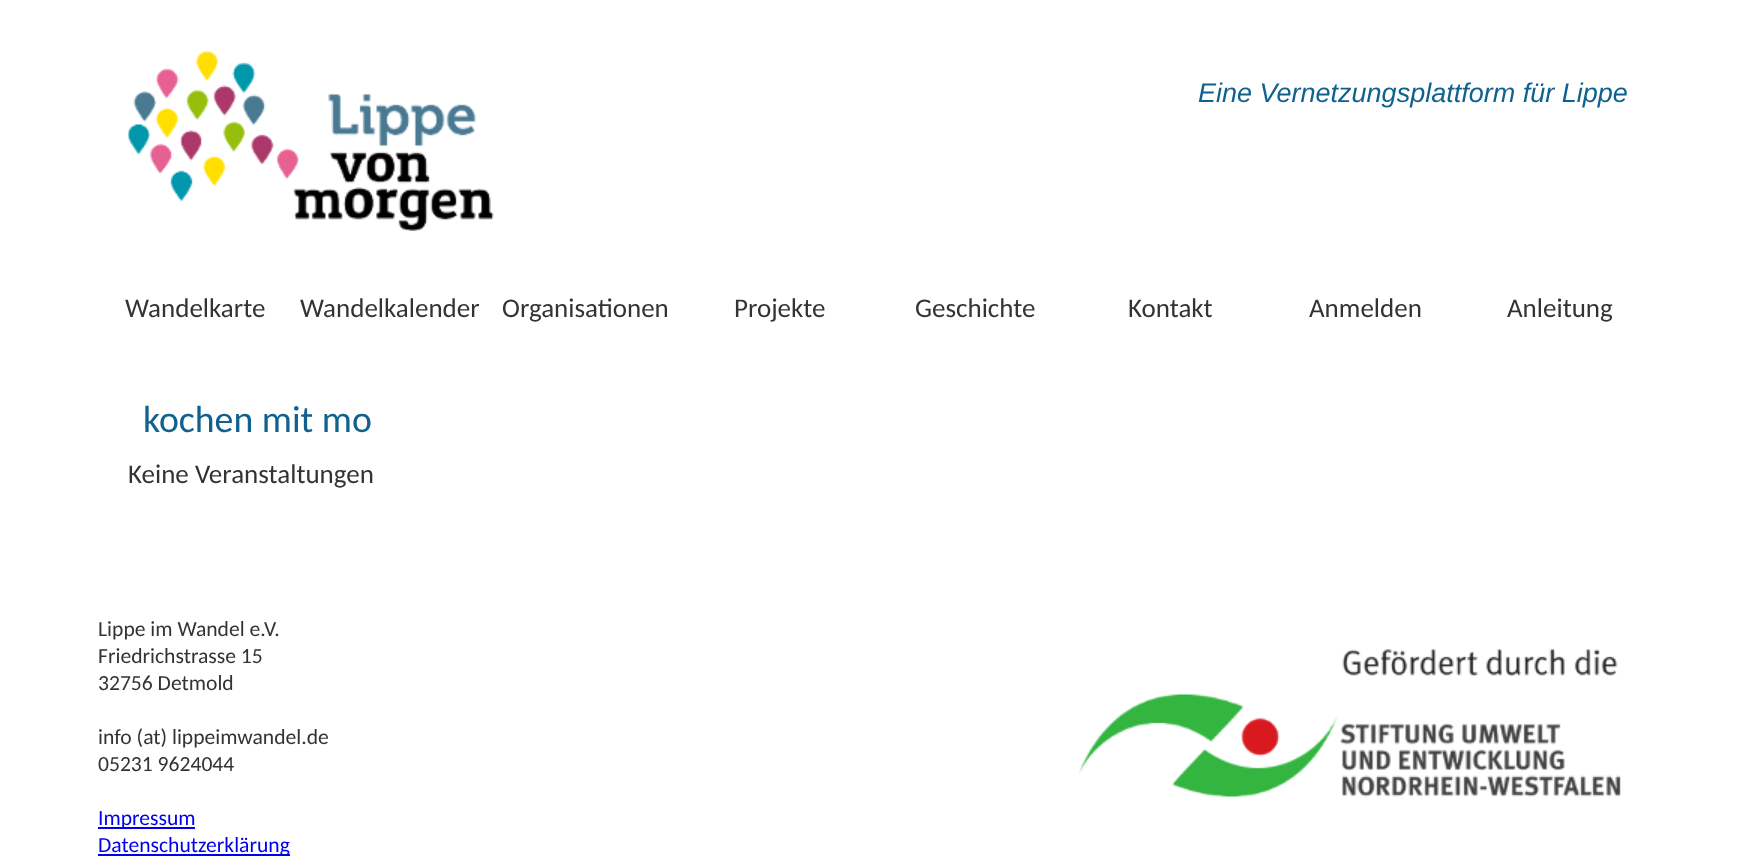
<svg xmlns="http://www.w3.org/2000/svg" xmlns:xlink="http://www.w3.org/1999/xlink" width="1755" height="861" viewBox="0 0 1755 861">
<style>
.cls-1{font:italic 27px Liberation Sans;fill:#0f618e}
.cls-2{font:27px Carlito;fill:#323336}
.cls-3{font:37.75px Carlito;fill:#0f618e}
.cls-4{font:21.6px Carlito;fill:#323336}
.cls-5{font:21.6px Carlito;fill:#0000ee}
</style>
<rect width="100%" height="100%" fill="#ffffff"/>
<image xlink:href="image0.png" x="128" y="51" width="366" height="180"/>
<image xlink:href="image1.png" x="1078" y="649" width="543" height="148"/>
<rect fill="#0000ee" x="98" y="827" width="97" height="2"/>
<rect fill="#0000ee" x="98" y="854" width="192" height="2"/>
<text class="cls-1" x="1198" y="102">Eine Vernetzungsplattform für Lippe</text>
<text class="cls-2" x="125" y="317">Wandelkarte</text>
<text class="cls-2" x="300" y="317">Wandelkalender</text>
<text class="cls-2" x="502" y="317">Organisationen</text>
<text class="cls-2" x="734" y="317">Projekte</text>
<text class="cls-2" x="915" y="317">Geschichte</text>
<text class="cls-2" x="1128" y="317">Kontakt</text>
<text class="cls-2" x="1309" y="317">Anmelden</text>
<text class="cls-2" x="1507" y="317">Anleitung</text>
<text class="cls-3" x="143" y="432">kochen mit mo</text>
<text class="cls-2" x="128" y="483">Keine Veranstaltungen</text>
<text class="cls-4"><tspan x="98" y="636">Lippe im Wandel e.V.</tspan><tspan x="98" y="663">Friedrichstrasse 15</tspan><tspan x="98" y="690">32756 Detmold</tspan></text>
<text class="cls-4"><tspan x="98" y="744">info (at) lippeimwandel.de</tspan><tspan x="98" y="771">05231 9624044</tspan></text>
<text class="cls-5"><tspan x="98" y="825">Impressum</tspan><tspan x="98" y="852">Datenschutzerklärung</tspan></text>
</svg>
